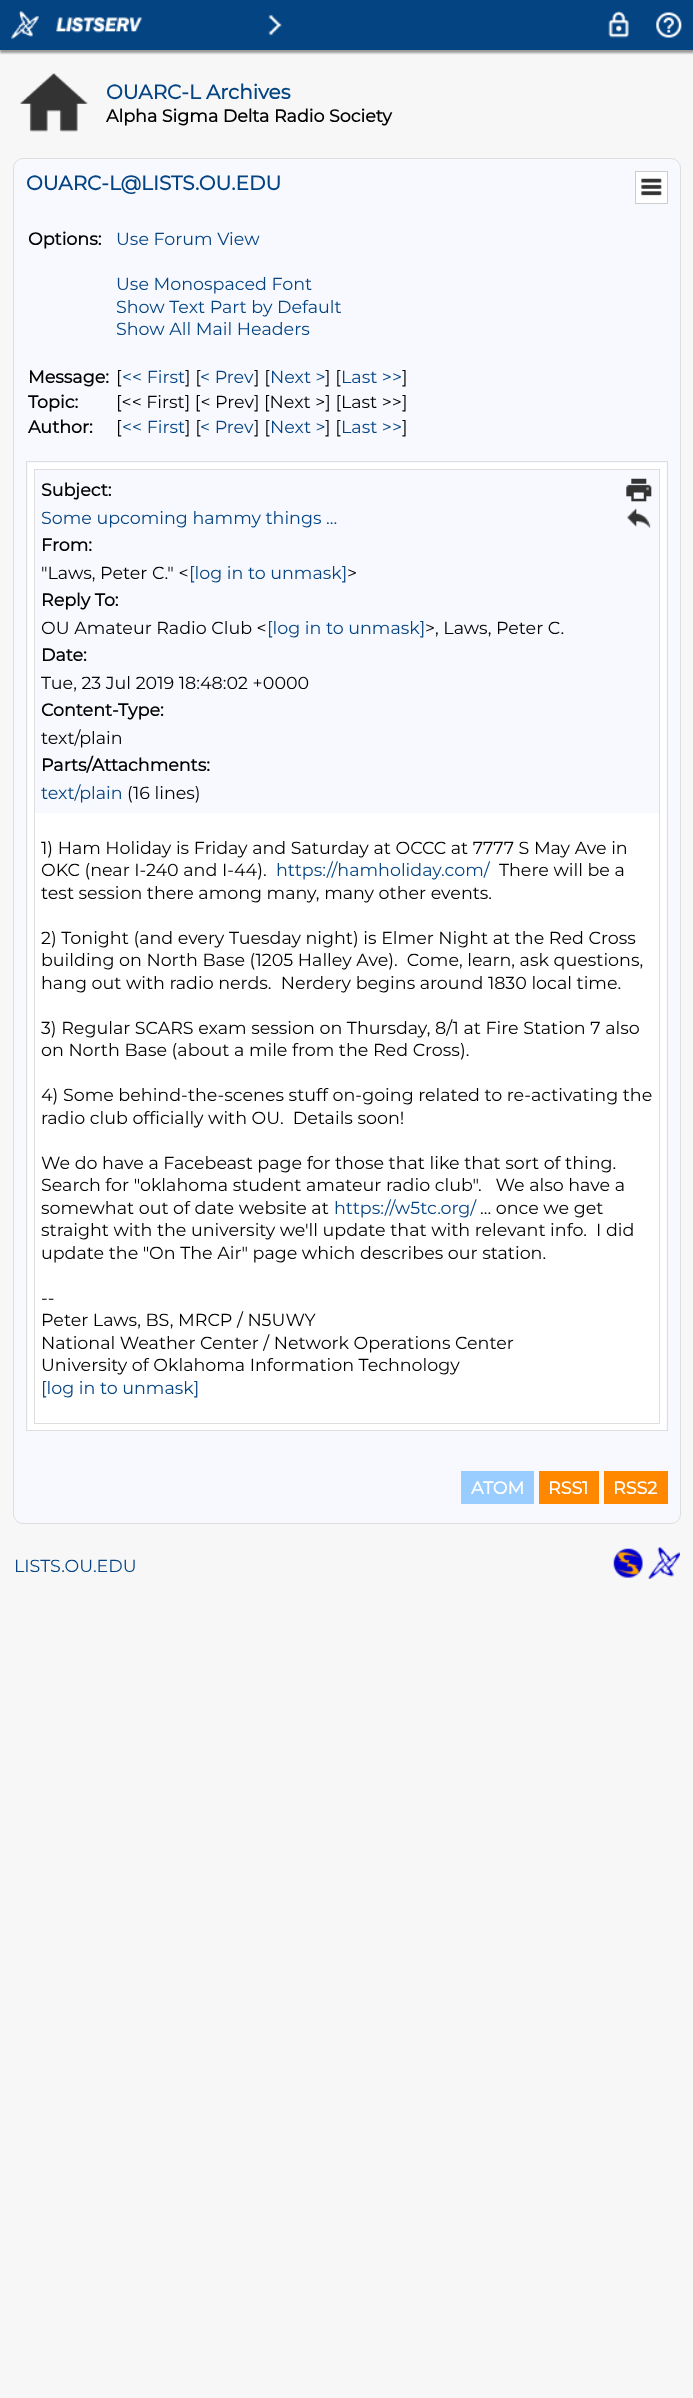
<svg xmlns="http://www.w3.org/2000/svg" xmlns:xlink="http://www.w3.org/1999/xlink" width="693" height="2398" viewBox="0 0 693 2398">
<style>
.cls-1{font:bold 20px Montserrat;fill:#054483}
.cls-2{font:bold 17.5px Montserrat;fill:#000000}
.cls-3{font:100 17.5px Montserrat;fill:#054483}
.cls-4{font:100 17.5px Montserrat;fill:#000000}
.cls-5{font:bold 17.5px Montserrat;fill:#ffffff}
</style>
<rect width="100%" height="100%" fill="#f7f7f7"/>
<rect fill="#999999" filter="blur(1px)" x="0" y="3" width="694" height="50"/>
<rect fill="#054483" x="0" y="0" width="693" height="50"/>
<image xlink:href="image0.png" x="11" y="11" width="28" height="28"/>
<image xlink:href="image1.png" x="56" y="17" width="87" height="16"/>
<image xlink:href="image2.png" x="268" y="14" width="14" height="22"/>
<image xlink:href="image3.png" x="608" y="11" width="21" height="27"/>
<image xlink:href="image4.png" x="656" y="12" width="26" height="26"/>
<image xlink:href="image5.png" x="20" y="73" width="68" height="59"/>
<rect fill="#f7f9fe" stroke="#dedede" x="13.5" y="158.5" width="667" height="1365" rx="9.5"/>
<rect fill="#ffffff" stroke="#cccccc" x="635.5" y="171.5" width="32" height="32"/>
<image xlink:href="image6.png" x="641" y="178" width="21" height="18"/>
<rect fill="none" stroke="#dedede" x="26.5" y="461.5" width="641" height="969"/>
<rect fill="#ffffff" x="28" y="463" width="638" height="967"/>
<rect fill="none" stroke="#dedede" x="34.5" y="469.5" width="625" height="954"/>
<rect fill="#f7f9fe" x="35" y="470" width="624" height="343"/>
<image xlink:href="image7.png" x="626" y="478" width="26" height="24"/>
<image xlink:href="image8.png" x="627" y="508" width="24" height="20"/>
<rect fill="#99ccff" x="461" y="1471" width="73" height="33"/>
<rect fill="#ff8800" x="539" y="1471" width="60" height="33"/>
<rect fill="#ff8800" x="604" y="1471" width="64" height="33"/>
<image xlink:href="image9.png" x="613" y="1548" width="30" height="30"/>
<image xlink:href="image10.png" x="648" y="1547" width="32" height="32"/>
<text class="cls-1" x="106" y="99">OUARC-L Archives</text>
<text class="cls-2" x="106" y="122">Alpha Sigma Delta Radio Society</text>
<text class="cls-1" x="26" y="190">OUARC-L@LISTS.OU.EDU</text>
<text class="cls-2" x="28" y="245">Options:</text>
<text class="cls-3" x="116" y="245">Use Forum View</text>
<text class="cls-3"><tspan x="116" y="290">Use Monospaced Font</tspan><tspan x="116" y="313">Show Text Part by Default</tspan><tspan x="116" y="335">Show All Mail Headers</tspan></text>
<text class="cls-2" x="28" y="383">Message:</text>
<text class="cls-4" x="116" y="383">[</text>
<text class="cls-3" x="122" y="383">&lt;&lt; First</text>
<text class="cls-4" x="185" y="383">] [</text>
<text class="cls-3" x="200" y="383">&lt; Prev</text>
<text class="cls-4" x="254" y="383">] [</text>
<text class="cls-3" x="270" y="383">Next &gt;</text>
<text class="cls-4" x="325" y="383">] [</text>
<text class="cls-3" x="341" y="383">Last &gt;&gt;</text>
<text class="cls-4" x="402" y="383">]</text>
<text class="cls-2" x="28" y="408">Topic:</text>
<text class="cls-4" x="116" y="408">[&lt;&lt; First] [&lt; Prev] [Next &gt;] [Last &gt;&gt;]</text>
<text class="cls-2" x="28" y="433">Author:</text>
<text class="cls-4" x="116" y="433">[</text>
<text class="cls-3" x="122" y="433">&lt;&lt; First</text>
<text class="cls-4" x="185" y="433">] [</text>
<text class="cls-3" x="200" y="433">&lt; Prev</text>
<text class="cls-4" x="254" y="433">] [</text>
<text class="cls-3" x="270" y="433">Next &gt;</text>
<text class="cls-4" x="325" y="433">] [</text>
<text class="cls-3" x="341" y="433">Last &gt;&gt;</text>
<text class="cls-4" x="402" y="433">]</text>
<text class="cls-2" x="41" y="496">Subject:</text>
<text class="cls-3" x="41" y="524">Some upcoming hammy things ...</text>
<text class="cls-2" x="41" y="551">From:</text>
<text class="cls-4" x="41" y="579">"Laws, Peter C." &lt;</text>
<text class="cls-3" x="189" y="579">[log in to unmask]</text>
<text class="cls-4" x="347" y="579">&gt;</text>
<text class="cls-2" x="41" y="606">Reply To:</text>
<text class="cls-4" x="41" y="634">OU Amateur Radio Club &lt;</text>
<text class="cls-3" x="267" y="634">[log in to unmask]</text>
<text class="cls-4" x="425" y="634">&gt;, Laws, Peter C.</text>
<text class="cls-2" x="41" y="661">Date:</text>
<text class="cls-4" x="41" y="689">Tue, 23 Jul 2019 18:48:02 +0000</text>
<text class="cls-2" x="41" y="716">Content-Type:</text>
<text class="cls-4" x="41" y="744">text/plain</text>
<text class="cls-2" x="41" y="771">Parts/Attachments:</text>
<text class="cls-3" x="41" y="799">text/plain</text>
<text class="cls-4" x="127" y="799">(16 lines)</text>
<text class="cls-4"><tspan x="41" y="854">1) Ham Holiday is Friday and Saturday at OCCC at 7777 S May Ave in</tspan><tspan x="41" y="876">OKC (near I-240 and I-44).</tspan></text>
<text class="cls-3" x="276" y="876">https://hamholiday.com/</text>
<text class="cls-4" x="499" y="876">There will be a</text>
<text class="cls-4" x="41" y="899">test session there among many, many other events.</text>
<text class="cls-4" xml:space="preserve"><tspan x="41" y="944">2) Tonight (and every Tuesday night) is Elmer Night at the Red Cross</tspan><tspan x="41" y="966">building on North Base (1205 Halley Ave).  Come, learn, ask questions,</tspan><tspan x="41" y="989">hang out with radio nerds.  Nerdery begins around 1830 local time.</tspan></text>
<text class="cls-4"><tspan x="41" y="1034">3) Regular SCARS exam session on Thursday, 8/1 at Fire Station 7 also</tspan><tspan x="41" y="1056">on North Base (about a mile from the Red Cross).</tspan></text>
<text class="cls-4" xml:space="preserve"><tspan x="41" y="1101">4) Some behind-the-scenes stuff on-going related to re-activating the</tspan><tspan x="41" y="1124">radio club officially with OU.  Details soon!</tspan></text>
<text class="cls-4" xml:space="preserve"><tspan x="41" y="1169">We do have a Facebeast page for those that like that sort of thing.</tspan><tspan x="41" y="1191">Search for "oklahoma student amateur radio club".   We also have a</tspan><tspan x="41" y="1214">somewhat out of date website at</tspan></text>
<text class="cls-3" x="334" y="1214">https://w5tc.org/</text>
<text class="cls-4" x="480" y="1214">... once we get</text>
<text class="cls-4" xml:space="preserve"><tspan x="41" y="1236">straight with the university we'll update that with relevant info.  I did</tspan><tspan x="41" y="1259">update the "On The Air" page which describes our station.</tspan></text>
<text class="cls-4"><tspan x="41" y="1304">--</tspan><tspan x="41" y="1326">Peter Laws, BS, MRCP / N5UWY</tspan><tspan x="41" y="1349">National Weather Center / Network Operations Center</tspan><tspan x="41" y="1371">University of Oklahoma Information Technology</tspan></text>
<text class="cls-3" x="41" y="1394">[log in to unmask]</text>
<text class="cls-5" x="471" y="1494">ATOM</text>
<text class="cls-5" x="548" y="1494">RSS1</text>
<text class="cls-5" x="613" y="1494">RSS2</text>
<text class="cls-3" x="14" y="1572">LISTS.OU.EDU</text>
</svg>
